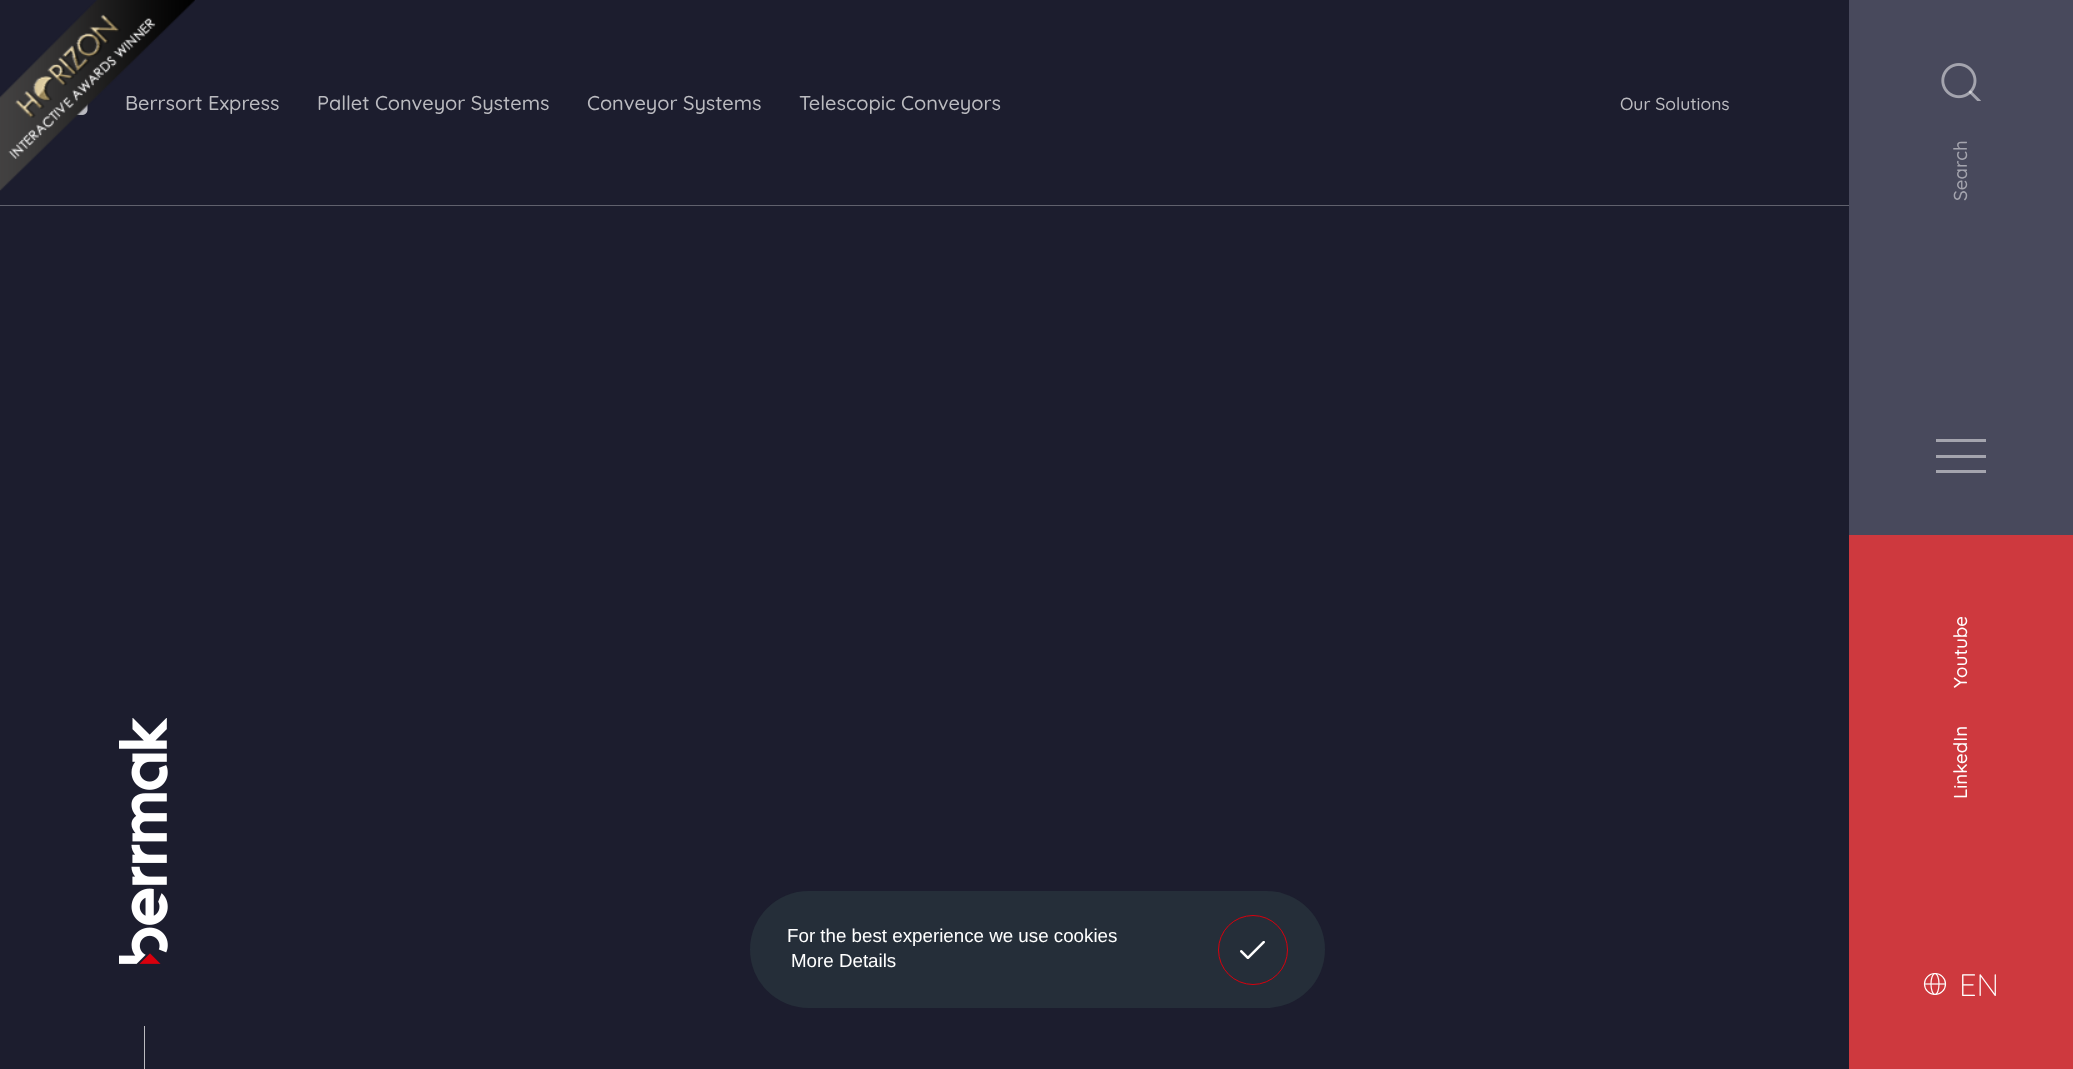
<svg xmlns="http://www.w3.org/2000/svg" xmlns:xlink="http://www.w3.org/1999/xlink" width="2073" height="1069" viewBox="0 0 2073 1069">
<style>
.cls-1{font:500 20px Quicksand;fill:#bbbbc0}
.cls-2{font:500 17.5px Quicksand;fill:#bbbbc0}
.cls-3{font:18.75px Liberation Sans;fill:#ffffff}
.cls-4{font:500 18.75px Quicksand;fill:#a4a4ae}
.cls-5{font:500 18.75px Quicksand;fill:#ffffff}
.cls-6{font:300 31px Quicksand;fill:#ffffff}
</style>
<rect width="100%" height="100%" fill="#1c1d2e"/>
<rect fill="#60616d" x="0" y="205" width="1849" height="1"/>
<image xlink:href="image1.png" x="76" y="103" width="12" height="12"/>
<image xlink:href="image2.png" x="119" y="718" width="49" height="246"/>
<rect fill="#bbbbc0" x="144" y="1026" width="1" height="43"/>
<rect fill="#252e39" x="750" y="891" width="575" height="117" rx="58.5"/>
<circle fill="none" stroke="#d9000d" cx="1253" cy="950" r="34.5"/>
<image xlink:href="image3.png" x="1240" y="941" width="25" height="18"/>
<rect fill="#48495c" x="1849" y="0" width="224" height="535"/>
<image xlink:href="image4.png" x="1941" y="63" width="40" height="38"/>
<rect fill="#a4a4ae" x="1936" y="439" width="50" height="3"/>
<rect fill="#a4a4ae" x="1936" y="455" width="50" height="3"/>
<rect fill="#a4a4ae" x="1936" y="470" width="50" height="3"/>
<rect fill="#ce393e" x="1849" y="535" width="224" height="534"/>
<circle fill="none" stroke="#ffffff" stroke-width="1.2" cx="1935" cy="984" r="10.5"/>
<ellipse fill="none" stroke="#ffffff" stroke-width="1.2" cx="1935" cy="984" rx="4" ry="10.5"/>
<path fill="none" stroke="#ffffff" stroke-width="1.2" d="M1924.5 984H1945.5"/>
<text class="cls-1" x="125" y="110">Berrsort Express</text>
<image xlink:href="image0.png" x="0" y="0" width="195" height="191"/>
<text class="cls-1" x="317" y="110">Pallet Conveyor Systems</text>
<text class="cls-1" x="587" y="110">Conveyor Systems</text>
<text class="cls-1" x="799" y="110">Telescopic Conveyors</text>
<text class="cls-2" x="1620" y="110">Our Solutions</text>
<text class="cls-3" x="787" y="942">For the best experience we use cookies</text>
<text class="cls-3" x="791" y="967">More Details</text>
<text class="cls-4" x="1967" y="201" transform="rotate(-90 1967 201)">Search</text>
<text class="cls-5" x="1967" y="688" transform="rotate(-90 1967 688)">Youtube</text>
<text class="cls-5" x="1967" y="799" transform="rotate(-90 1967 799)">LinkedIn</text>
<text class="cls-6" x="1959" y="996">EN</text>
</svg>
